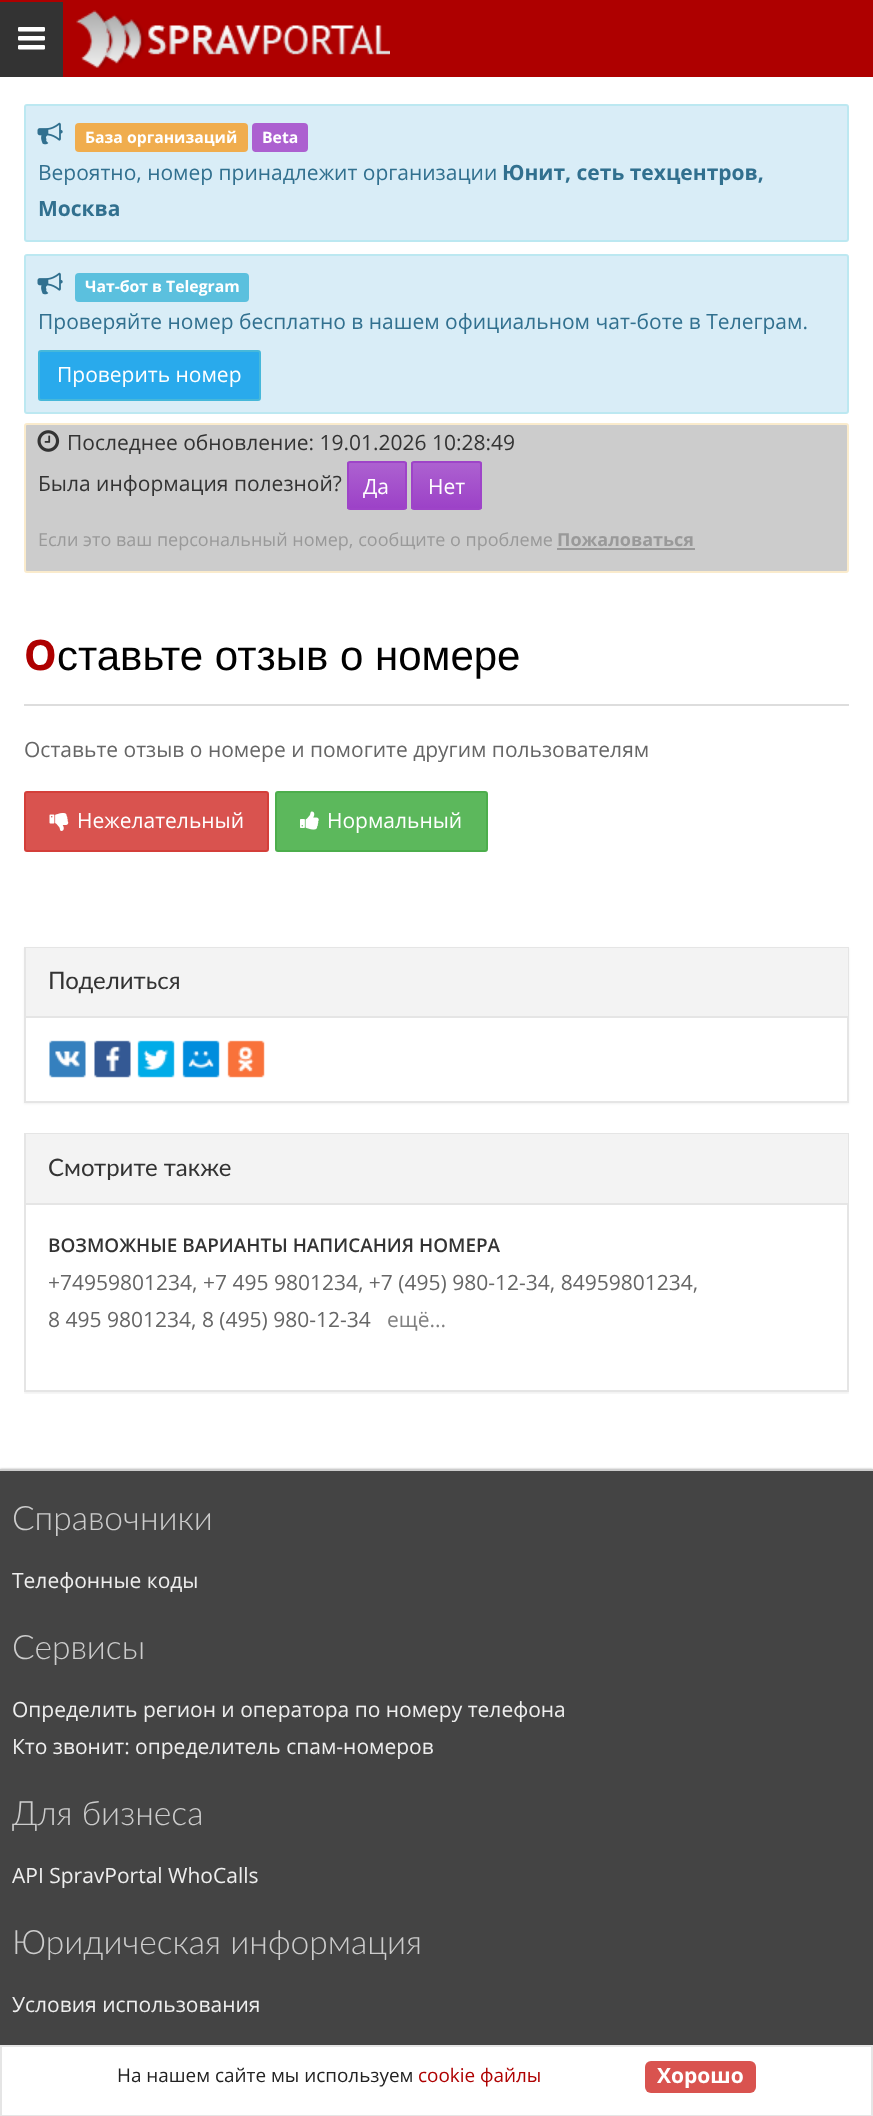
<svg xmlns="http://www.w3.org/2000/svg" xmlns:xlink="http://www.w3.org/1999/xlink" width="873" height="2116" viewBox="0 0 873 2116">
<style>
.cls-1{font:bold 15.75px Open Sans;fill:#ffffff}
.cls-2{font:21px Open Sans;fill:#31708f}
.cls-3{font:bold 21px Open Sans;fill:#31708f}
.cls-4{font:21px Open Sans;fill:#ffffff}
.cls-5{font:21px Open Sans;fill:#333333}
.cls-6{font:18px Open Sans;fill:#999999}
.cls-7{font:bold 18px Open Sans;fill:#999999}
.cls-8{font:bold 42px Noto Sans;fill:#ae0000}
.cls-9{font:42px Liberation Sans;fill:#000000}
.cls-10{font:21px Open Sans;fill:#666666}
.cls-11{font:24px Lato;fill:#333333}
.cls-12{font:600 18.9px Open Sans;fill:#333333}
.cls-13{font:21px Open Sans;fill:#808080}
.cls-14{font:300 33.6px Lato;fill:#cccccc}
.cls-15{font:21px Open Sans;fill:#eeeeee}
.cls-16{font:18.9px Open Sans;fill:#222222}
.cls-17{font:18.9px Open Sans;fill:#ae0000}
.cls-18{font:bold 21px Open Sans;fill:#ffffff}
</style>
<defs>
<clipPath id="clip1"><rect x="347" y="461" width="60" height="49" rx="3"/></clipPath>
<linearGradient id="g1" gradientUnits="userSpaceOnUse" x1="377" y1="462" x2="377" y2="509"><stop offset="0.05" stop-color="#ac60d0"/><stop offset="1" stop-color="#9c41c7"/></linearGradient>
<clipPath id="clip2"><rect x="411" y="461" width="71" height="49" rx="3"/></clipPath>
<linearGradient id="g2" gradientUnits="userSpaceOnUse" x1="446" y1="462" x2="446" y2="509"><stop offset="0.05" stop-color="#ac60d0"/><stop offset="1" stop-color="#9c41c7"/></linearGradient>
<clipPath id="clip3"><rect x="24" y="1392" width="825" height="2"/></clipPath>
</defs>
<rect width="100%" height="100%" fill="#ffffff"/>
<rect fill="#ae0000" x="0" y="0" width="873" height="77"/>
<rect fill="#333333" x="0" y="2" width="63" height="75"/>
<image xlink:href="image0.png" x="18" y="27" width="27" height="23"/>
<image xlink:href="image1.png" x="76" y="10" width="314" height="58"/>
<rect fill="#d9edf7" stroke="#bce8f1" stroke-width="2" x="25" y="105" width="823" height="136" rx="2"/>
<image xlink:href="image2.png" x="37" y="122" width="26" height="23"/>
<rect fill="#f0ad4e" x="75" y="123" width="173" height="29" rx="4"/>
<rect fill="#ac60d0" x="252" y="123" width="56" height="29" rx="4"/>
<rect fill="#d9edf7" stroke="#bce8f1" stroke-width="2" x="25" y="255" width="823" height="158" rx="2"/>
<image xlink:href="image2.png" x="37" y="272" width="26" height="23"/>
<rect fill="#5bc0de" x="75" y="273" width="174" height="29" rx="4"/>
<rect fill="#29aaec" stroke="#46b8da" stroke-width="2" x="39" y="351" width="221" height="49" rx="2"/>
<rect fill="#cccccc" stroke="#faebcc" stroke-width="2" x="25" y="424" width="823" height="148" rx="2"/>
<image xlink:href="image3.png" x="37" y="430" width="23" height="22"/>
<g clip-path="url(#clip1)">
<rect fill="url(#g1)" x="347" y="462" width="60" height="47"/>
</g>
<rect fill="none" stroke="#9e44c8" stroke-width="2" x="348" y="462" width="58" height="47" rx="2"/>
<g clip-path="url(#clip2)">
<rect fill="url(#g2)" x="411" y="462" width="71" height="47"/>
</g>
<rect fill="none" stroke="#9e44c8" stroke-width="2" x="412" y="462" width="69" height="47" rx="2"/>
<rect fill="#999999" x="557" y="548" width="138" height="2"/>
<rect fill="#dddddd" x="24" y="704" width="825" height="2"/>
<rect fill="#d9534f" stroke="#d43f3a" stroke-width="2" x="25" y="792" width="243" height="59" rx="2"/>
<image xlink:href="image4.png" x="49" y="813" width="20" height="18"/>
<rect fill="#5cb85c" stroke="#4cae4c" stroke-width="2" x="276" y="792" width="211" height="59" rx="2"/>
<image xlink:href="image5.png" x="300" y="811" width="19" height="19"/>
<rect fill="#000000" fill-opacity="0.05" filter="blur(1px)" x="24" y="948" width="825" height="156"/>
<rect fill="#ffffff" x="26" y="1018" width="821" height="83"/>
<rect fill="none" stroke="#e5e5e5" stroke-width="2" x="25" y="948" width="823" height="154"/>
<rect fill="#f3f3f3" x="26" y="948" width="822" height="68"/>
<rect fill="#e5e5e5" x="26" y="1016" width="822" height="2"/>
<image xlink:href="image6.png" x="49" y="1040" width="37" height="38"/>
<image xlink:href="image7.png" x="94" y="1040" width="37" height="38"/>
<image xlink:href="image8.png" x="137" y="1040" width="38" height="38"/>
<image xlink:href="image9.png" x="182" y="1040" width="38" height="38"/>
<image xlink:href="image10.png" x="227" y="1040" width="38" height="38"/>
<g clip-path="url(#clip3)">
<rect fill="#000000" fill-opacity="0.05" filter="blur(1px)" x="24" y="1134" width="825" height="260"/>
</g>
<rect fill="none" stroke="#e5e5e5" stroke-width="2" x="25" y="1134" width="823" height="257"/>
<rect fill="#f3f3f3" x="26" y="1134" width="822" height="69"/>
<rect fill="#e5e5e5" x="26" y="1203" width="822" height="2"/>
<rect fill="#000000" fill-opacity="0.3" filter="blur(1px)" x="0" y="1469" width="873" height="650"/>
<rect fill="#444444" x="0" y="1471" width="873" height="574"/>
<rect fill="#cccccc" x="0" y="1469" width="873" height="2"/>
<rect fill="#ffffff" stroke="#e5e5e5" stroke-width="2" x="1" y="2046" width="871" height="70"/>
<rect fill="#d9534f" x="645" y="2061" width="111" height="32" rx="6"/>
<text class="cls-1" x="85" y="143">База организаций</text>
<text class="cls-1" x="262" y="143">Beta</text>
<text class="cls-2" x="38" y="180">Вероятно, номер принадлежит организации</text>
<text class="cls-3" x="502" y="180">Юнит, сеть техцентров,</text>
<text class="cls-3" x="38" y="216">Москва</text>
<text class="cls-1" x="85" y="292">Чат-бот в Telegram</text>
<text class="cls-2" x="38" y="329">Проверяйте номер бесплатно в нашем официальном чат-боте в Телеграм.</text>
<text class="cls-4" x="57" y="382">Проверить номер</text>
<text class="cls-5" x="67" y="450">Последнее обновление: 19.01.2026 10:28:49</text>
<text class="cls-5" x="38" y="491">Была информация полезной?</text>
<text class="cls-4" x="363" y="494">Да</text>
<text class="cls-4" x="428" y="494">Нет</text>
<text class="cls-6" x="38" y="546">Если это ваш персональный номер, сообщите о проблеме</text>
<text class="cls-7" x="557" y="546">Пожаловаться</text>
<text class="cls-8" x="24" y="670">О</text>
<text class="cls-9" x="57" y="670">ставьте отзыв о номере</text>
<text class="cls-10" x="24" y="757">Оставьте отзыв о номере и помогите другим пользователям</text>
<text class="cls-4" x="77" y="828">Нежелательный</text>
<text class="cls-4" x="327" y="828">Нормальный</text>
<text class="cls-11" x="48" y="989">Поделиться</text>
<text class="cls-11" x="48" y="1176">Смотрите также</text>
<text class="cls-12" x="48" y="1252">ВОЗМОЖНЫЕ ВАРИАНТЫ НАПИСАНИЯ НОМЕРА</text>
<text class="cls-10"><tspan x="48" y="1290">+74959801234, +7 495 9801234, +7 (495) 980-12-34, 84959801234,</tspan><tspan x="48" y="1327">8 495 9801234, 8 (495) 980-12-34</tspan></text>
<text class="cls-13" x="387" y="1327">ещё...</text>
<text class="cls-14" x="12" y="1530">Справочники</text>
<text class="cls-15" x="12" y="1588">Телефонные коды</text>
<text class="cls-14" x="12" y="1659">Сервисы</text>
<text class="cls-15"><tspan x="12" y="1717">Определить регион и оператора по номеру телефона</tspan><tspan x="12" y="1754">Кто звонит: определитель спам-номеров</tspan></text>
<text class="cls-14" x="12" y="1825">Для бизнеса</text>
<text class="cls-15" x="12" y="1883">API SpravPortal WhoCalls</text>
<text class="cls-14" x="12" y="1954">Юридическая информация</text>
<text class="cls-15" x="12" y="2012">Условия использования</text>
<text class="cls-16" x="117" y="2082">На нашем сайте мы используем</text>
<text class="cls-17" x="418" y="2082">cookie файлы</text>
<text class="cls-18" x="657" y="2083">Хорошо</text>
</svg>
